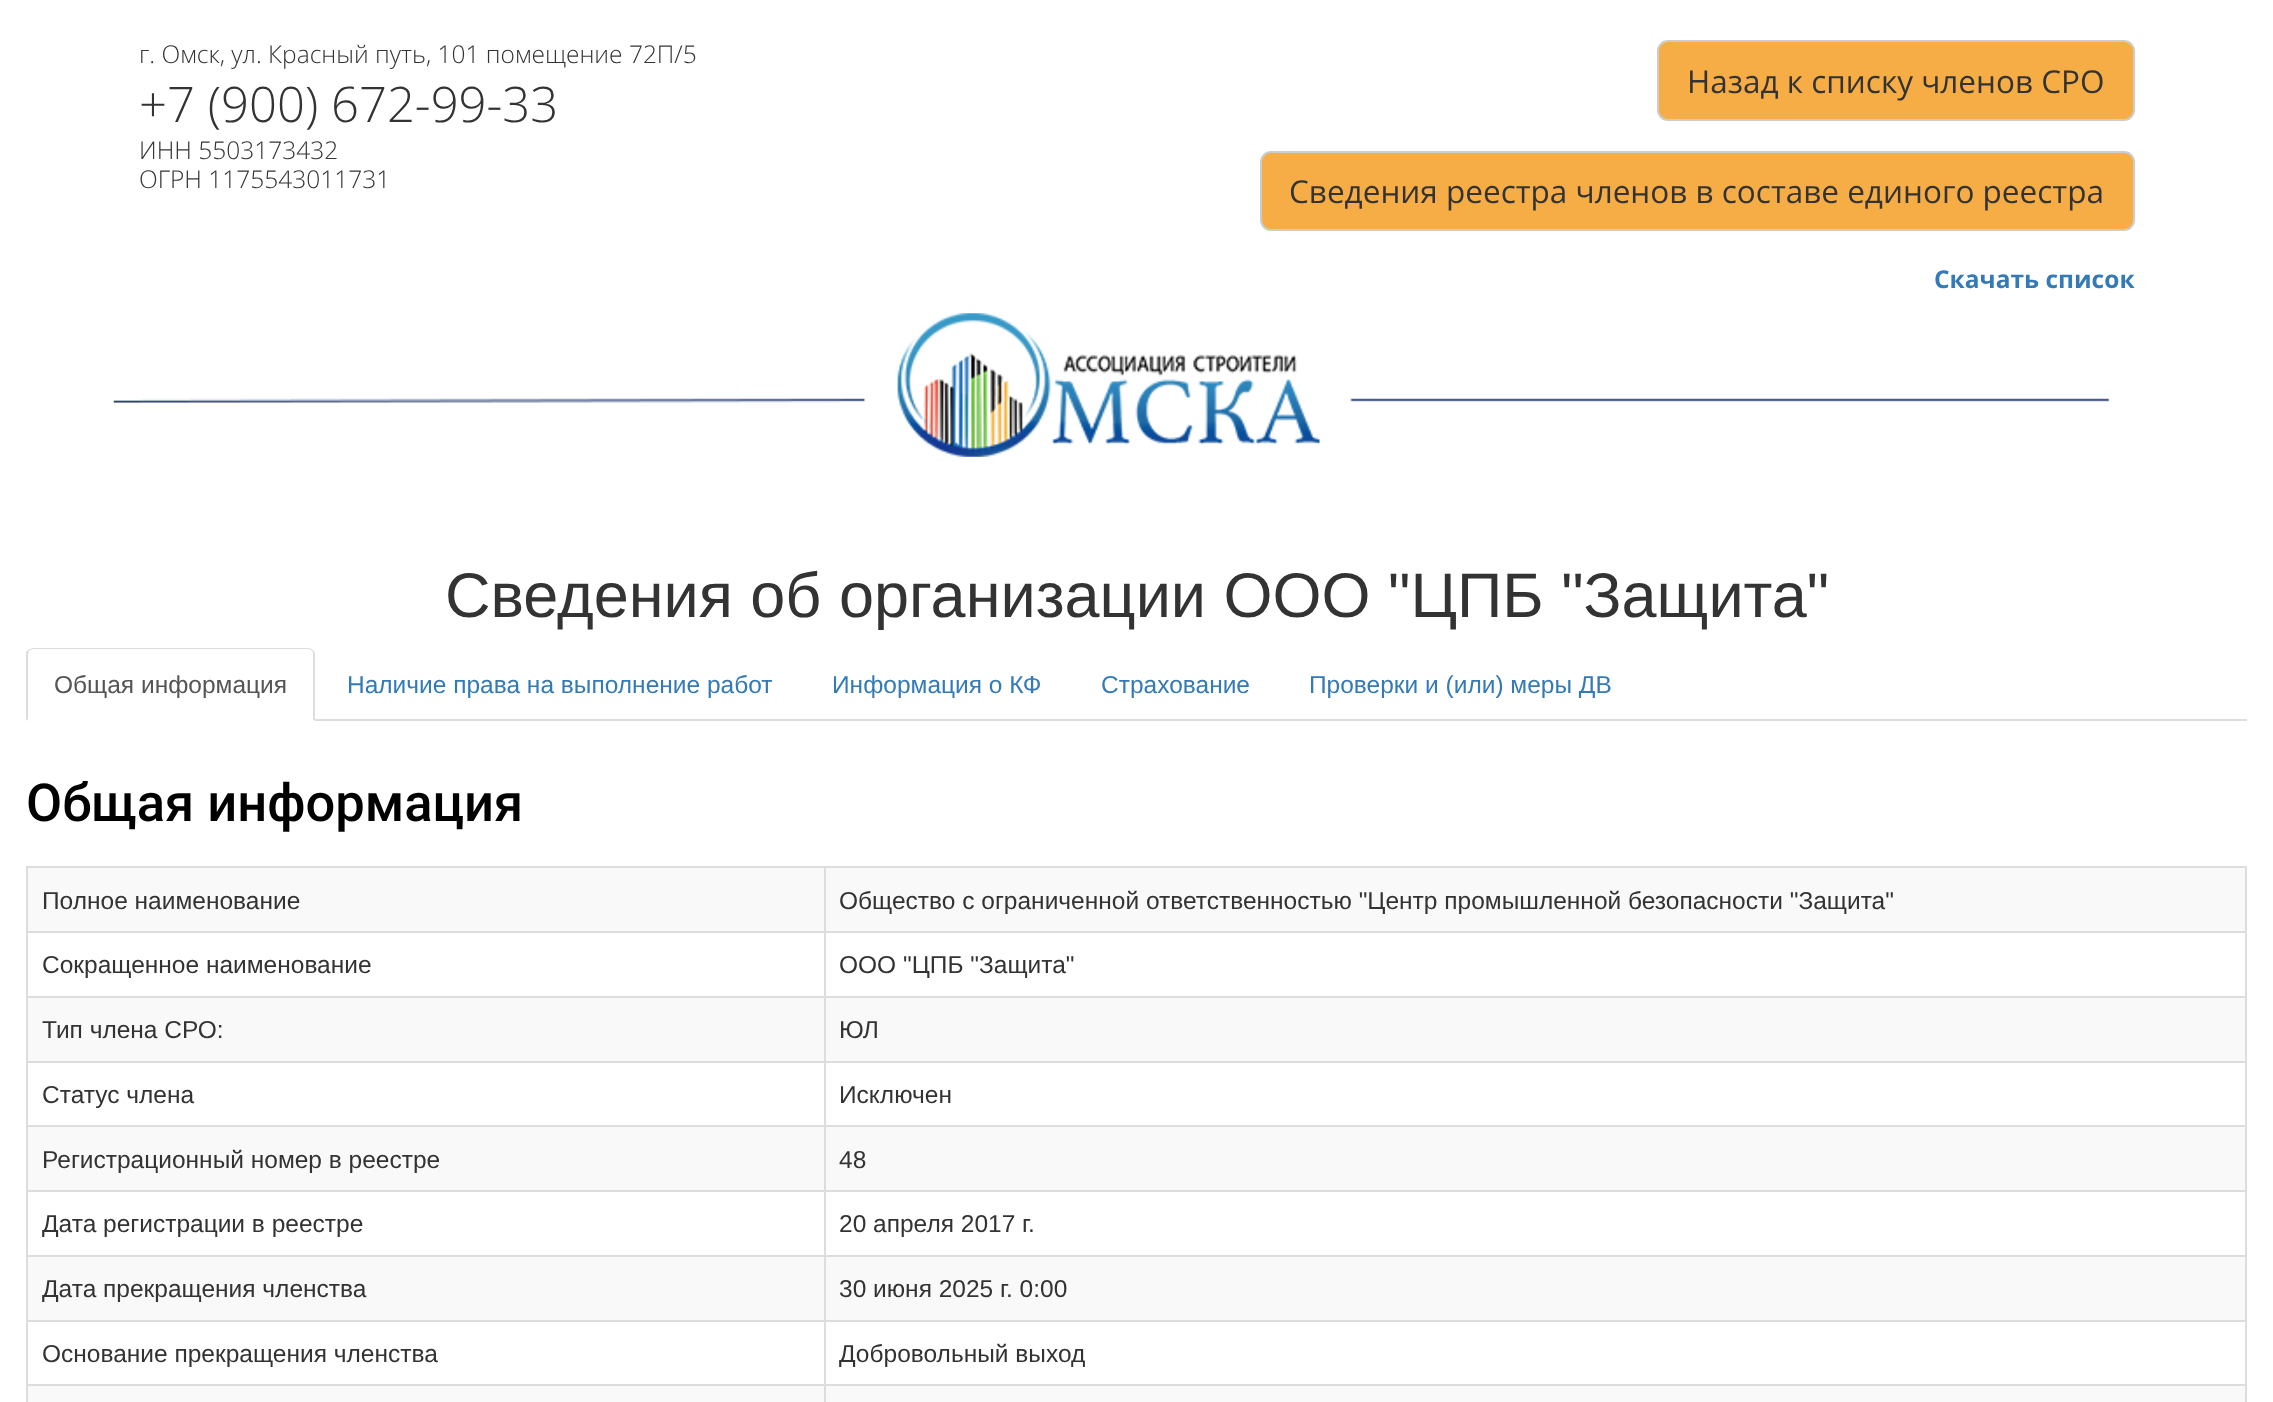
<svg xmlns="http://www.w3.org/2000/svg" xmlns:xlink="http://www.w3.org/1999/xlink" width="2273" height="1402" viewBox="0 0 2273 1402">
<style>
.cls-1{font:300 24.5px Open Sans;fill:#333333}
.cls-2{font:300 49px Open Sans;fill:#333333}
.cls-3{font:31.5px Open Sans;fill:#333333}
.cls-4{font:bold 24.5px Open Sans;fill:#337ab7}
.cls-5{font:63px Liberation Sans;fill:#333333}
.cls-6{font:24.5px Liberation Sans;fill:#555555}
.cls-7{font:24.5px Liberation Sans;fill:#337ab7}
.cls-8{font:500 52.5px Roboto;fill:#000000}
.cls-9{font:24.5px Liberation Sans;fill:#333333}
</style>
<rect width="100%" height="100%" fill="#ffffff"/>
<rect fill="#f6ad46" stroke="#cccccc" stroke-width="2" x="1658" y="41" width="476" height="79" rx="10"/>
<rect fill="#f6ad46" stroke="#cccccc" stroke-width="2" x="1261" y="152" width="873" height="78" rx="10"/>
<image xlink:href="image0.png" x="113" y="313" width="1996" height="144"/>
<rect fill="#dddddd" x="315" y="719" width="1932" height="2"/>
<path fill="#dddddd" d="M33 648C31 648 30 649 28 650L29 651C30 650 32 649 33 649H308C310 649 311 650 312 651L313 650C312 649 310 648 308 648Z"/>
<path fill="#dddddd" d="M313 650L315 653V721L313 719V654C313 653 313 652 312 651Z"/>
<path fill="#dddddd" d="M26 721L28 719V654C28 653 29 652 29 651L28 650L26 652Z"/>
<rect fill="#dddddd" x="26" y="866" width="2221" height="2"/>
<rect fill="#dddddd" x="2245" y="866" width="2" height="536"/>
<rect fill="#dddddd" x="26" y="866" width="2" height="536"/>
<rect fill="#f9f9f9" x="28" y="868" width="2217" height="63"/>
<rect fill="#dddddd" x="824" y="931" width="1423" height="2"/>
<rect fill="#dddddd" x="824" y="996" width="1423" height="2"/>
<rect fill="#f9f9f9" x="28" y="998" width="2217" height="63"/>
<rect fill="#dddddd" x="824" y="1061" width="1423" height="2"/>
<rect fill="#dddddd" x="824" y="1125" width="1423" height="2"/>
<rect fill="#f9f9f9" x="28" y="1127" width="2217" height="63"/>
<rect fill="#dddddd" x="824" y="1190" width="1423" height="2"/>
<rect fill="#dddddd" x="824" y="1255" width="1423" height="2"/>
<rect fill="#f9f9f9" x="28" y="1257" width="2217" height="63"/>
<rect fill="#dddddd" x="824" y="1320" width="1423" height="2"/>
<rect fill="#dddddd" x="824" y="1384" width="1423" height="2"/>
<rect fill="#f9f9f9" x="28" y="1386" width="2217" height="16"/>
<rect fill="#dddddd" x="824" y="1384" width="2" height="18"/>
<rect fill="#dddddd" x="26" y="1384" width="800" height="2"/>
<rect fill="#dddddd" x="824" y="1320" width="2" height="66"/>
<rect fill="#dddddd" x="26" y="1320" width="800" height="2"/>
<rect fill="#dddddd" x="824" y="1255" width="2" height="66"/>
<rect fill="#dddddd" x="26" y="1255" width="800" height="2"/>
<rect fill="#dddddd" x="824" y="1190" width="2" height="67"/>
<rect fill="#dddddd" x="26" y="1190" width="800" height="2"/>
<rect fill="#dddddd" x="824" y="1125" width="2" height="67"/>
<rect fill="#dddddd" x="26" y="1125" width="800" height="2"/>
<rect fill="#dddddd" x="824" y="1061" width="2" height="66"/>
<rect fill="#dddddd" x="26" y="1061" width="800" height="2"/>
<rect fill="#dddddd" x="824" y="996" width="2" height="66"/>
<rect fill="#dddddd" x="26" y="996" width="800" height="2"/>
<rect fill="#dddddd" x="824" y="931" width="2" height="67"/>
<rect fill="#dddddd" x="26" y="931" width="800" height="2"/>
<rect fill="#dddddd" x="824" y="866" width="2" height="67"/>
<text class="cls-1" x="139" y="63">г. Омск, ул. Красный путь, 101 помещение 72П/5</text>
<text class="cls-2" x="139" y="122">+7 (900) 672-99-33</text>
<text class="cls-1"><tspan x="139" y="159">ИНН 5503173432</tspan><tspan x="139" y="188">ОГРН 1175543011731</tspan></text>
<text class="cls-3" x="1687" y="93">Назад к списку членов СРО</text>
<text class="cls-3" x="1289" y="203">Сведения реестра членов в составе единого реестра</text>
<text class="cls-4" x="1934" y="288">Скачать список</text>
<text class="cls-5" x="445" y="617">Сведения об организации ООО "ЦПБ "Защита"</text>
<text class="cls-6" x="54" y="693">Общая информация</text>
<text class="cls-7" x="347" y="693">Наличие права на выполнение работ</text>
<text class="cls-7" x="832" y="693">Информация о КФ</text>
<text class="cls-7" x="1101" y="693">Страхование</text>
<text class="cls-7" x="1309" y="693">Проверки и (или) меры ДВ</text>
<text class="cls-8" x="26" y="821">Общая информация</text>
<text class="cls-9" x="42" y="909">Полное наименование</text>
<text class="cls-9" x="839" y="909">Общество с ограниченной ответственностью "Центр промышленной безопасности "Защита"</text>
<text class="cls-9" x="42" y="973">Сокращенное наименование</text>
<text class="cls-9" x="839" y="973">ООО "ЦПБ "Защита"</text>
<text class="cls-9" x="42" y="1038">Тип члена СРО:</text>
<text class="cls-9" x="839" y="1038">ЮЛ</text>
<text class="cls-9" x="42" y="1103">Статус члена</text>
<text class="cls-9" x="839" y="1103">Исключен</text>
<text class="cls-9" x="42" y="1168">Регистрационный номер в реестре</text>
<text class="cls-9" x="839" y="1168">48</text>
<text class="cls-9" x="42" y="1232">Дата регистрации в реестре</text>
<text class="cls-9" x="839" y="1232">20 апреля 2017 г.</text>
<text class="cls-9" x="42" y="1297">Дата прекращения членства</text>
<text class="cls-9" x="839" y="1297">30 июня 2025 г. 0:00</text>
<text class="cls-9" x="42" y="1362">Основание прекращения членства</text>
<text class="cls-9" x="839" y="1362">Добровольный выход</text>
</svg>
